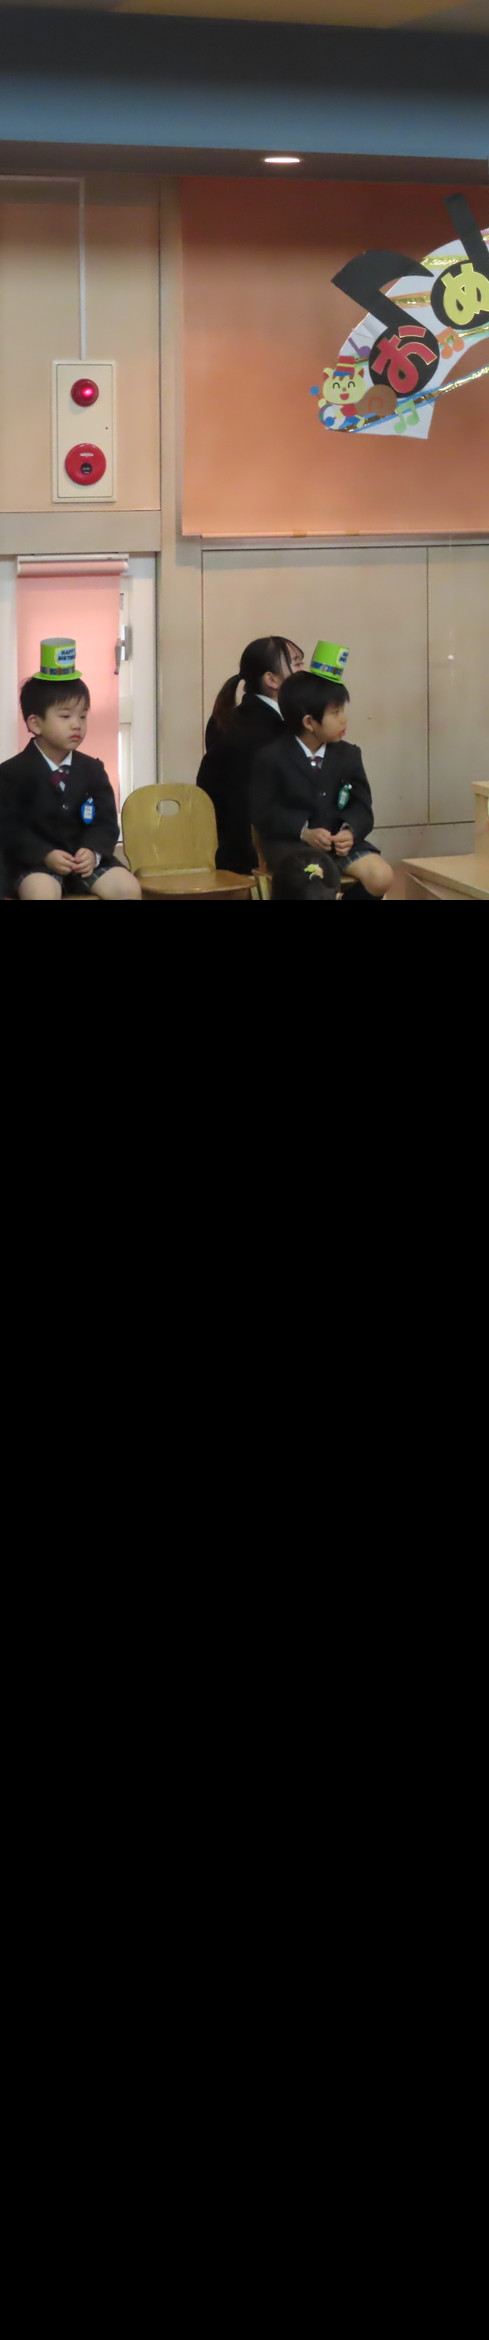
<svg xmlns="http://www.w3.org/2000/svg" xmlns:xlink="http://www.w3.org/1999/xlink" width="489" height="2340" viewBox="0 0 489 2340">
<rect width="100%" height="100%" fill="#000000"/>
<image xlink:href="image0.png" x="0" y="0" width="489" height="900"/>
</svg>
